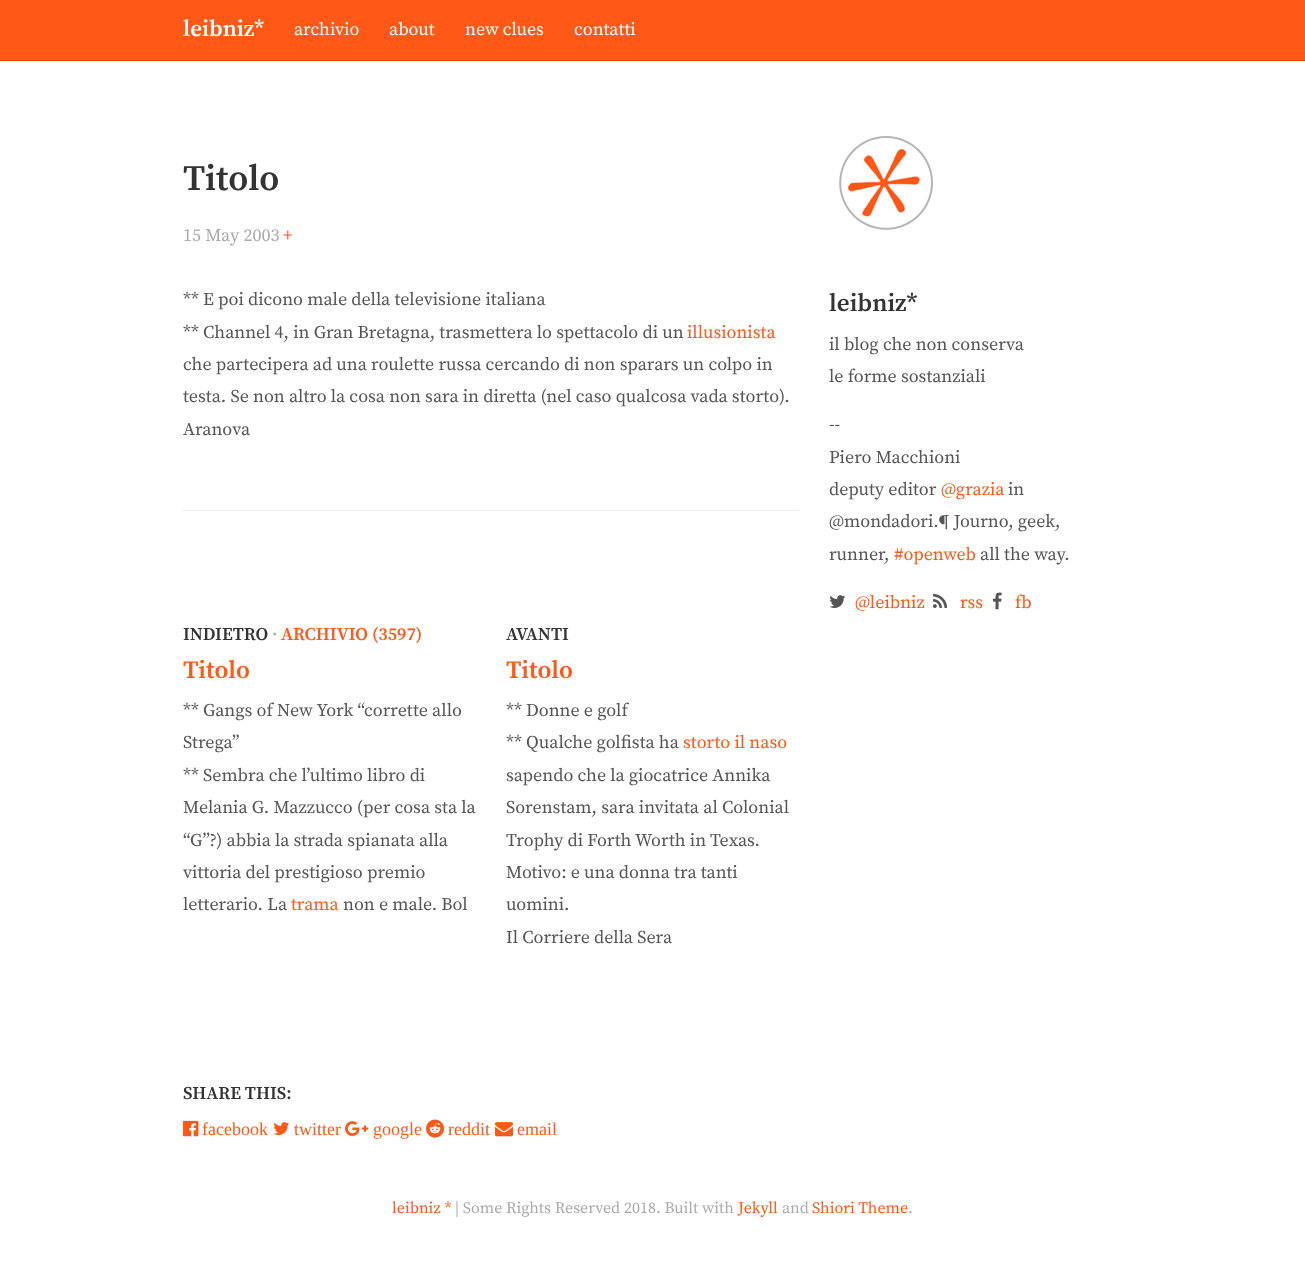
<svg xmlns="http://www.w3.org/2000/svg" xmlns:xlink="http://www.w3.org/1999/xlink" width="1305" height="1261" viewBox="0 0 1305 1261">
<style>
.cls-1{font:600 23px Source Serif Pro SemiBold;fill:#ffffff}
.cls-2{font:18px Source Serif Pro;fill:#ffffff}
.cls-3{font:600 36px Source Serif Pro SemiBold;fill:#333333}
.cls-4{font:18px Source Serif Pro;fill:#aaaaaa}
.cls-5{font:18px Source Serif Pro;fill:#ff5817}
.cls-6{font:18px Source Serif Pro;fill:#555555}
.cls-7{font:600 18px Source Serif Pro SemiBold;fill:#333333}
.cls-8{font:600 18px Source Serif Pro SemiBold;fill:#aaaaaa}
.cls-9{font:600 18px Source Serif Pro SemiBold;fill:#ff5817}
.cls-10{font:600 25px Source Serif Pro SemiBold;fill:#ff5817}
.cls-11{font:18px Liberation Serif;fill:#ff5817}
.cls-12{font:600 25px Source Serif Pro SemiBold;fill:#333333}
.cls-13{font:16px Source Serif Pro;fill:#ff5817}
.cls-14{font:16px Source Serif Pro;fill:#aaaaaa}
</style>
<rect width="100%" height="100%" fill="#ffffff"/>
<rect fill="#ff5817" x="0" y="0" width="1305" height="60"/>
<rect fill="#e34000" x="0" y="60" width="1305" height="1"/>
<rect fill="#eeeeee" x="183" y="510" width="616" height="1"/>
<image xlink:href="image0.png" x="183" y="1120" width="16" height="17"/>
<image xlink:href="image1.png" x="273" y="1122" width="17" height="13"/>
<image xlink:href="image2.png" x="345" y="1121" width="24" height="15"/>
<image xlink:href="image3.png" x="426" y="1119" width="18" height="19"/>
<image xlink:href="image4.png" x="495" y="1122" width="18" height="15"/>
<image xlink:href="image5.png" x="839" y="136" width="94" height="94"/>
<image xlink:href="image6.png" x="829" y="595" width="17" height="13"/>
<image xlink:href="image7.png" x="933" y="593" width="15" height="15"/>
<image xlink:href="image8.png" x="992" y="592" width="10" height="18"/>
<text class="cls-1" x="183" y="36">leibniz*</text>
<text class="cls-2" x="294" y="35">archivio</text>
<text class="cls-2" x="389" y="35">about</text>
<text class="cls-2" x="465" y="35">new clues</text>
<text class="cls-2" x="574" y="35">contatti</text>
<text class="cls-3" x="183" y="190">Titolo</text>
<text class="cls-4" x="183" y="241">15 May 2003</text>
<text class="cls-5" x="283" y="241">+</text>
<text class="cls-6"><tspan x="183" y="305">** E poi dicono male della televisione italiana</tspan><tspan x="183" y="338">** Channel 4, in Gran Bretagna, trasmettera lo spettacolo di un</tspan></text>
<text class="cls-5" x="687" y="338">illusionista</text>
<text class="cls-6"><tspan x="183" y="370">che partecipera ad una roulette russa cercando di non sparars un colpo in</tspan><tspan x="183" y="402">testa. Se non altro la cosa non sara in diretta (nel caso qualcosa vada storto).</tspan><tspan x="183" y="435">Aranova</tspan></text>
<text class="cls-7" x="183" y="640">INDIETRO</text>
<text class="cls-8" x="272" y="640">·</text>
<text class="cls-9" x="281" y="640">ARCHIVIO (3597)</text>
<text class="cls-10" x="183" y="678">Titolo</text>
<text class="cls-6"><tspan x="183" y="716">** Gangs of New York “corrette allo</tspan><tspan x="183" y="748">Strega”</tspan><tspan x="183" y="781">** Sembra che l’ultimo libro di</tspan><tspan x="183" y="813">Melania G. Mazzucco (per cosa sta la</tspan><tspan x="183" y="846">“G”?) abbia la strada spianata alla</tspan><tspan x="183" y="878">vittoria del prestigioso premio</tspan><tspan x="183" y="910">letterario. La</tspan></text>
<text class="cls-5" x="291" y="910">trama</text>
<text class="cls-6" x="343" y="910">non e male. Bol</text>
<text class="cls-7" x="506" y="640">AVANTI</text>
<text class="cls-10" x="506" y="678">Titolo</text>
<text class="cls-6"><tspan x="506" y="716">** Donne e golf</tspan><tspan x="506" y="748">** Qualche golfista ha</tspan></text>
<text class="cls-5" x="683" y="748">storto il naso</text>
<text class="cls-6"><tspan x="506" y="781">sapendo che la giocatrice Annika</tspan><tspan x="506" y="813">Sorenstam, sara invitata al Colonial</tspan><tspan x="506" y="846">Trophy di Forth Worth in Texas.</tspan><tspan x="506" y="878">Motivo: e una donna tra tanti</tspan><tspan x="506" y="910">uomini.</tspan><tspan x="506" y="943">Il Corriere della Sera</tspan></text>
<text class="cls-7" x="183" y="1099">SHARE THIS:</text>
<text class="cls-11" x="202" y="1135">facebook</text>
<text class="cls-11" x="294" y="1135">twitter</text>
<text class="cls-11" x="373" y="1135">google</text>
<text class="cls-11" x="448" y="1135">reddit</text>
<text class="cls-11" x="517" y="1135">email</text>
<text class="cls-12" x="829" y="311">leibniz*</text>
<text class="cls-6"><tspan x="829" y="350">il blog che non conserva</tspan><tspan x="829" y="382">le forme sostanziali</tspan></text>
<text class="cls-6"><tspan x="829" y="430">--</tspan><tspan x="829" y="463">Piero Macchioni</tspan><tspan x="829" y="495">deputy editor</tspan></text>
<text class="cls-5" x="941" y="495">@grazia</text>
<text class="cls-6" x="1008" y="495">in</text>
<text class="cls-6"><tspan x="829" y="527">@mondadori.¶ Journo, geek,</tspan><tspan x="829" y="560">runner,</tspan></text>
<text class="cls-5" x="894" y="560">#openweb</text>
<text class="cls-6" x="980" y="560">all the way.</text>
<text class="cls-5" x="855" y="608">@leibniz</text>
<text class="cls-5" x="960" y="608">rss</text>
<text class="cls-5" x="1015" y="608">fb</text>
<text class="cls-13" x="392" y="1213">leibniz *</text>
<text class="cls-14" x="455" y="1213">| Some Rights Reserved 2018. Built with</text>
<text class="cls-13" x="738" y="1213">Jekyll</text>
<text class="cls-14" x="782" y="1213">and</text>
<text class="cls-13" x="812" y="1213">Shiori Theme</text>
<text class="cls-14" x="908" y="1213">.</text>
</svg>
